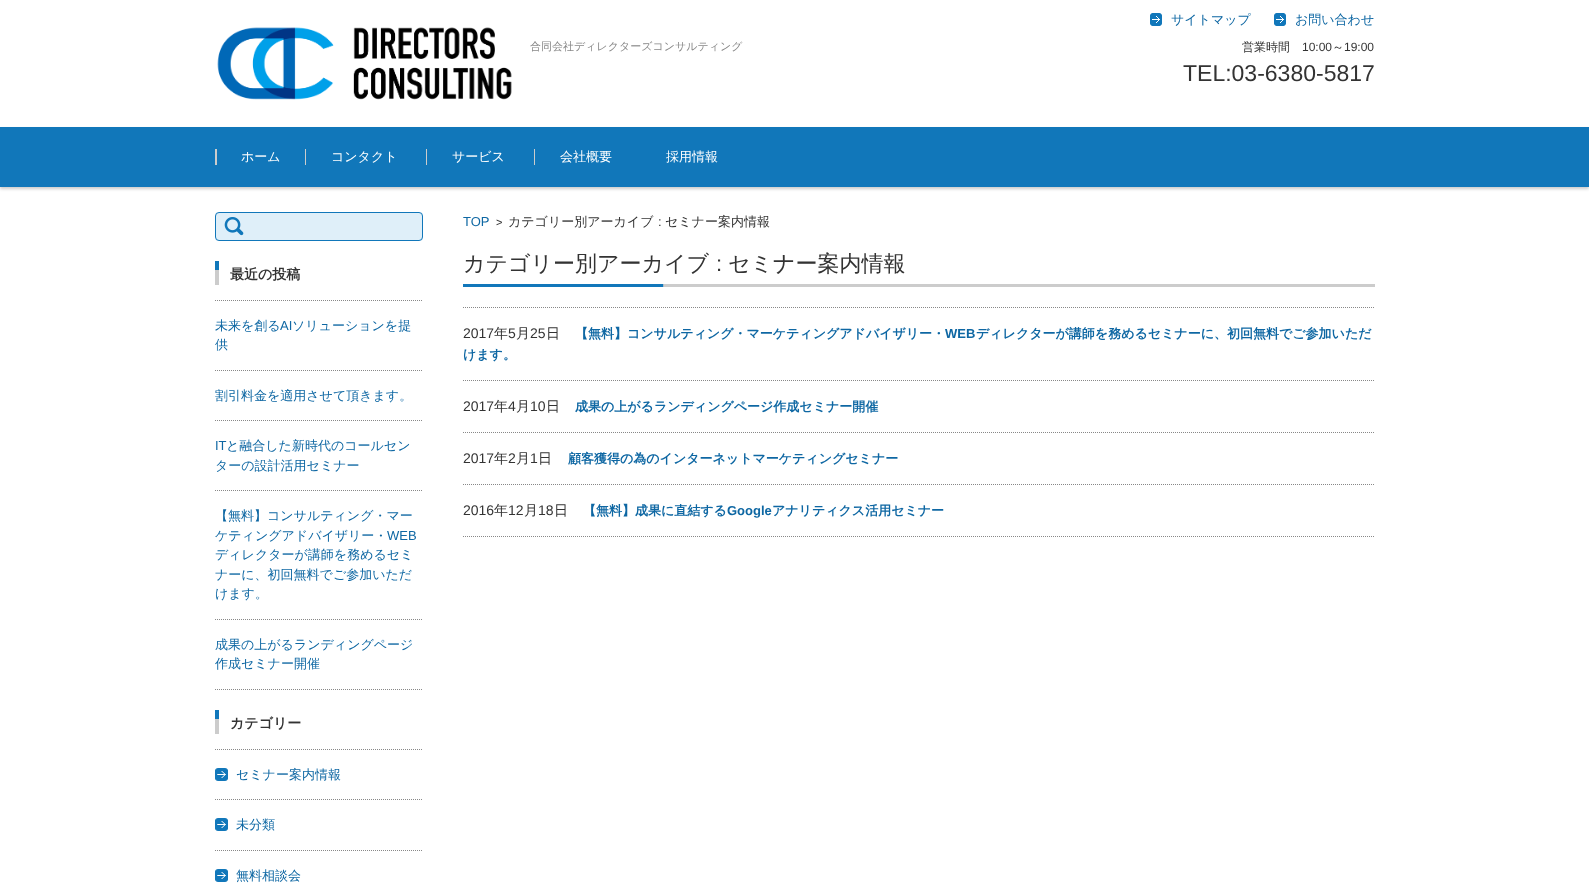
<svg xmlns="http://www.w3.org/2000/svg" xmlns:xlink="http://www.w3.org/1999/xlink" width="1589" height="883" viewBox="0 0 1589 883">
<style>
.cls-1{font:500 11px WenQuanYi Zen Hei;fill:#888888}
.cls-2{font:500 13px WenQuanYi Zen Hei;fill:#0e67a3}
.cls-3{font:500 12px WenQuanYi Zen Hei;fill:#333333}
.cls-4{font:12px Liberation Sans;fill:#333333}
.cls-5{font:23px Liberation Sans;fill:#333333}
.cls-6{font:500 13px WenQuanYi Zen Hei;fill:#ffffff}
.cls-7{font:bold 14px WenQuanYi Zen Hei;fill:#333333}
.cls-8{font:13px Liberation Sans;fill:#0e67a3}
.cls-9{font:11px Liberation Sans;fill:#333333}
.cls-10{font:500 13px WenQuanYi Zen Hei;fill:#333333}
.cls-11{font:13px Liberation Sans;fill:#333333}
.cls-12{font:500 22px WenQuanYi Zen Hei;fill:#333333}
.cls-13{font:22px Liberation Sans;fill:#333333}
.cls-14{font:14px Liberation Sans;fill:#333333}
.cls-15{font:500 14px WenQuanYi Zen Hei;fill:#333333}
.cls-16{font:bold 13px WenQuanYi Zen Hei;fill:#0e67a3}
.cls-17{font:bold 13px Liberation Sans;fill:#0e67a3}
</style>
<rect width="100%" height="100%" fill="#ffffff"/>
<image xlink:href="image0.png" x="217" y="27" width="295" height="73"/>
<image xlink:href="image1.png" x="1150" y="13" width="12" height="13"/>
<image xlink:href="image1.png" x="1274" y="13" width="12" height="13"/>
<rect fill="#000000" fill-opacity="0.2" filter="blur(1.5px)" x="0" y="129" width="1589" height="60"/>
<rect fill="#1177ba" x="0" y="127" width="1589" height="60"/>
<rect fill="#cccccc" x="215" y="149" width="2" height="16"/>
<rect fill="#cccccc" x="305" y="149" width="1" height="16"/>
<rect fill="#cccccc" x="426" y="149" width="1" height="16"/>
<rect fill="#cccccc" x="534" y="149" width="1" height="16"/>
<rect fill="#dfeff9" x="215" y="212" width="208" height="29" rx="4"/>
<image xlink:href="image2.png" x="224" y="217" width="20" height="19"/>
<rect fill="none" stroke="#1177ba" x="215.5" y="212.5" width="207" height="28" rx="3.5"/>
<image xlink:href="image3.png" x="215" y="261" width="4" height="24"/>
<path fill="none" stroke="#888888" stroke-dasharray="1 1" d="M215 300.5H423"/>
<path fill="none" stroke="#888888" stroke-dasharray="1 1" d="M215 370.5H423"/>
<path fill="none" stroke="#888888" stroke-dasharray="1 1" d="M215 420.5H423"/>
<path fill="none" stroke="#888888" stroke-dasharray="1 1" d="M215 490.5H423"/>
<path fill="none" stroke="#888888" stroke-dasharray="1 1" d="M215 619.5H423"/>
<path fill="none" stroke="#888888" stroke-dasharray="1 1" d="M215 689.5H423"/>
<image xlink:href="image3.png" x="215" y="710" width="4" height="24"/>
<path fill="none" stroke="#888888" stroke-dasharray="1 1" d="M215 749.5H423"/>
<image xlink:href="image4.png" x="215" y="768" width="13" height="13"/>
<path fill="none" stroke="#888888" stroke-dasharray="1 1" d="M215 799.5H423"/>
<image xlink:href="image4.png" x="215" y="818" width="13" height="13"/>
<path fill="none" stroke="#888888" stroke-dasharray="1 1" d="M215 850.5H423"/>
<image xlink:href="image4.png" x="215" y="869" width="13" height="13"/>
<image xlink:href="image5.png" x="463" y="284" width="912" height="3"/>
<path fill="none" stroke="#888888" stroke-dasharray="1 1" d="M463 536.5H1375"/>
<path fill="none" stroke="#888888" stroke-dasharray="1 1" d="M463 307.5H1375"/>
<path fill="none" stroke="#888888" stroke-dasharray="1 1" d="M463 380.5H1375"/>
<path fill="none" stroke="#888888" stroke-dasharray="1 1" d="M463 432.5H1375"/>
<path fill="none" stroke="#888888" stroke-dasharray="1 1" d="M463 484.5H1375"/>
<text class="cls-1" x="530" y="50">合同会社ディレクターズコンサルティング</text>
<text class="cls-2" x="1171" y="24">サイトマップ</text>
<text class="cls-2" x="1295" y="24">お問い合わせ</text>
<text class="cls-3" x="1242" y="51">営業時間</text>
<text class="cls-4" x="1302" y="51">10:00</text>
<text class="cls-3" x="1332" y="51">～</text>
<text class="cls-4" x="1344" y="51">19:00</text>
<text class="cls-5" x="1183" y="81">TEL:03-6380-5817</text>
<text class="cls-6" x="241" y="161">ホーム</text>
<text class="cls-6" x="331" y="161">コンタクト</text>
<text class="cls-6" x="452" y="161">サービス</text>
<text class="cls-6" x="560" y="161">会社概要</text>
<text class="cls-6" x="666" y="161">採用情報</text>
<text class="cls-7" x="230" y="279">最近の投稿</text>
<text class="cls-2" x="215" y="330">未来を創る</text>
<text class="cls-8" x="280" y="330">AI</text>
<text class="cls-2" x="292" y="330">ソリューションを提</text>
<text class="cls-2" x="215" y="349">供</text>
<text class="cls-2" x="215" y="400">割引料金を適用させて頂きます。</text>
<text class="cls-8" x="215" y="450">IT</text>
<text class="cls-2" x="226" y="450">と融合した新時代のコールセン</text>
<text class="cls-2" x="215" y="470">ターの設計活用セミナー</text>
<text class="cls-2"><tspan x="215" y="520">【無料】コンサルティング・マー</tspan><tspan x="215" y="540">ケティングアドバイザリー・</tspan></text>
<text class="cls-8" x="387" y="540">WEB</text>
<text class="cls-2"><tspan x="215" y="559">ディレクターが講師を務めるセミ</tspan><tspan x="215" y="579">ナーに、初回無料でご参加いただ</tspan><tspan x="215" y="598">けます。</tspan></text>
<text class="cls-2"><tspan x="215" y="649">成果の上がるランディングページ</tspan><tspan x="215" y="668">作成セミナー開催</tspan></text>
<text class="cls-7" x="230" y="728">カテゴリー</text>
<text class="cls-2" x="236" y="779">セミナー案内情報</text>
<text class="cls-2" x="236" y="829">未分類</text>
<text class="cls-2" x="236" y="880">無料相談会</text>
<text class="cls-8" x="463" y="226">TOP</text>
<text class="cls-9" x="496" y="226">&gt;</text>
<text class="cls-10" x="508" y="226">カテゴリー別アーカイブ</text>
<text class="cls-11" x="658" y="226">:</text>
<text class="cls-10" x="665" y="226">セミナー案内情報</text>
<text class="cls-12" x="463" y="271">カテゴリー別アーカイブ</text>
<text class="cls-13" x="716" y="271">:</text>
<text class="cls-12" x="728" y="271">セミナー案内情報</text>
<text class="cls-14" x="463" y="338">2017</text>
<text class="cls-15" x="494" y="338">年</text>
<text class="cls-14" x="508" y="338">5</text>
<text class="cls-15" x="516" y="338">月</text>
<text class="cls-14" x="530" y="338">25</text>
<text class="cls-15" x="546" y="338">日</text>
<text class="cls-16" x="575" y="338">【無料】コンサルティング・マーケティングアドバイザリー・</text>
<text class="cls-17" x="945" y="338">WEB</text>
<text class="cls-16" x="976" y="338">ディレクターが講師を務めるセミナーに、初回無料でご参加いただ</text>
<text class="cls-16" x="463" y="359">けます。</text>
<text class="cls-14" x="463" y="411">2017</text>
<text class="cls-15" x="494" y="411">年</text>
<text class="cls-14" x="508" y="411">4</text>
<text class="cls-15" x="516" y="411">月</text>
<text class="cls-14" x="530" y="411">10</text>
<text class="cls-15" x="546" y="411">日</text>
<text class="cls-16" x="575" y="411">成果の上がるランディングページ作成セミナー開催</text>
<text class="cls-14" x="463" y="463">2017</text>
<text class="cls-15" x="494" y="463">年</text>
<text class="cls-14" x="508" y="463">2</text>
<text class="cls-15" x="516" y="463">月</text>
<text class="cls-14" x="530" y="463">1</text>
<text class="cls-15" x="538" y="463">日</text>
<text class="cls-16" x="568" y="463">顧客獲得の為のインターネットマーケティングセミナー</text>
<text class="cls-14" x="463" y="515">2016</text>
<text class="cls-15" x="494" y="515">年</text>
<text class="cls-14" x="508" y="515">12</text>
<text class="cls-15" x="524" y="515">月</text>
<text class="cls-14" x="538" y="515">18</text>
<text class="cls-15" x="554" y="515">日</text>
<text class="cls-16" x="583" y="515">【無料】成果に直結する</text>
<text class="cls-17" x="727" y="515">Google</text>
<text class="cls-16" x="772" y="515">アナリティクス活用セミナー</text>
</svg>
